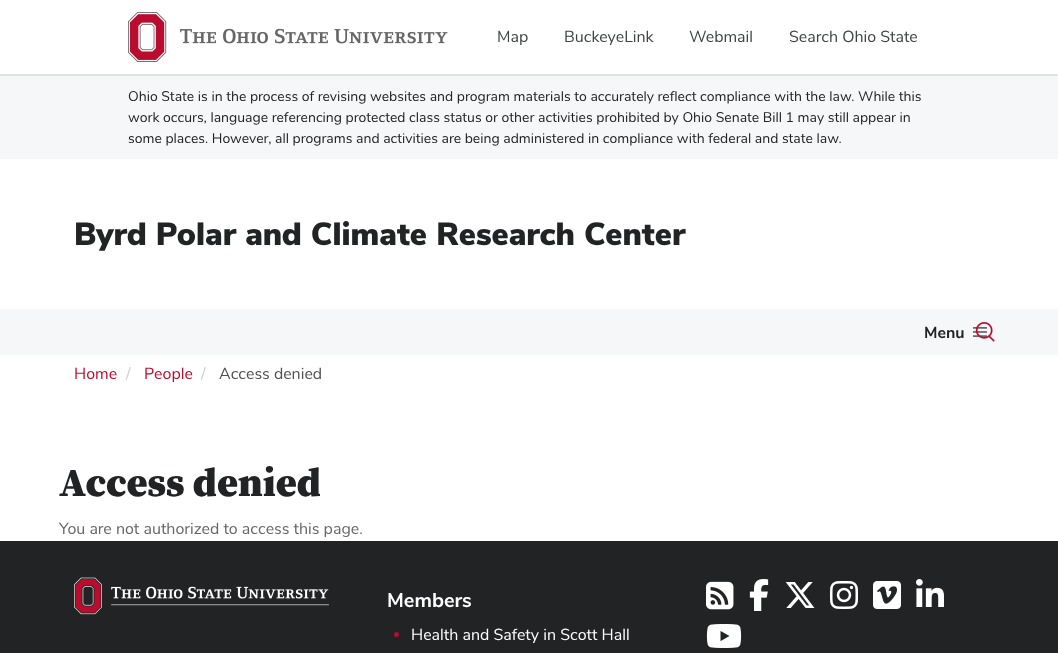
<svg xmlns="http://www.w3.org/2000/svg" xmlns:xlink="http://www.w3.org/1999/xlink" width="1058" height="653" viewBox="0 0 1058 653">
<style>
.cls-1{font:16px 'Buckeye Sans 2';fill:#3f4443}
.cls-2{font:14px 'Buckeye Sans 2';fill:#212325}
.cls-3{font:900 32px 'Buckeye Sans 2';fill:#212325}
.cls-4{font:bold 16px 'Buckeye Sans 2';fill:#212325}
.cls-5{font:16px 'Buckeye Sans 2';fill:#ba0c2f}
.cls-6{font:16px 'Buckeye Sans 2';fill:#cccccc}
.cls-7{font:16px 'Buckeye Sans 2';fill:#544f4f}
.cls-8{font:900 40px 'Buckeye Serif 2';fill:#212325}
.cls-9{font:16px 'Buckeye Sans 2';fill:#666666}
.cls-10{font:bold 20px 'Buckeye Sans 2';fill:#ffffff}
.cls-11{font:16px 'Buckeye Sans 2';fill:#ffffff}
</style>
<rect width="100%" height="100%" fill="#ffffff"/>
<rect fill="#dfe3e5" x="0" y="74" width="1058" height="2"/>
<image xlink:href="image0.png" x="128" y="12" width="320" height="50"/>
<rect fill="#f6f7f8" x="0" y="76" width="1058" height="83"/>
<rect fill="#f6f7f8" x="0" y="309" width="1058" height="46"/>
<image xlink:href="image1.png" x="973" y="327" width="14" height="10"/>
<image xlink:href="image2.png" x="975" y="322" width="20" height="20"/>
<rect fill="#212325" x="0" y="541" width="1058" height="112"/>
<image xlink:href="image3.png" x="74" y="577" width="255" height="38"/>
<circle fill="#ba0c2f" cx="396.5" cy="634.5" r="2.5"/>
<image xlink:href="image4.png" x="706" y="581" width="28" height="29"/>
<image xlink:href="image5.png" x="749" y="579" width="20" height="32"/>
<image xlink:href="image6.png" x="785" y="582" width="30" height="26"/>
<image xlink:href="image7.png" x="830" y="581" width="28" height="28"/>
<image xlink:href="image8.png" x="873" y="581" width="28" height="28"/>
<image xlink:href="image9.png" x="916" y="579" width="28" height="28"/>
<image xlink:href="image10.png" x="706" y="624" width="36" height="24"/>
<text class="cls-1" x="497" y="42">Map</text>
<text class="cls-1" x="564" y="42">BuckeyeLink</text>
<text class="cls-1" x="689" y="42">Webmail</text>
<text class="cls-1" x="789" y="42">Search Ohio State</text>
<text class="cls-2"><tspan x="128" y="101">Ohio State is in the process of revising websites and program materials to accurately reflect compliance with the law. While this</tspan><tspan x="128" y="122">work occurs, language referencing protected class status or other activities prohibited by Ohio Senate Bill 1 may still appear in</tspan><tspan x="128" y="143">some places. However, all programs and activities are being administered in compliance with federal and state law.</tspan></text>
<text class="cls-3" x="74" y="245">Byrd Polar and Climate Research Center</text>
<text class="cls-4" x="924" y="338">Menu</text>
<text class="cls-5" x="74" y="379">Home</text>
<text class="cls-6" x="126" y="379">/</text>
<text class="cls-5" x="144" y="379">People</text>
<text class="cls-6" x="201" y="379">/</text>
<text class="cls-7" x="219" y="379">Access denied</text>
<text class="cls-8" x="59" y="496">Access denied</text>
<text class="cls-9" x="59" y="534">You are not authorized to access this page.</text>
<text class="cls-10" x="387" y="607">Members</text>
<text class="cls-11" x="411" y="640">Health and Safety in Scott Hall</text>
</svg>
